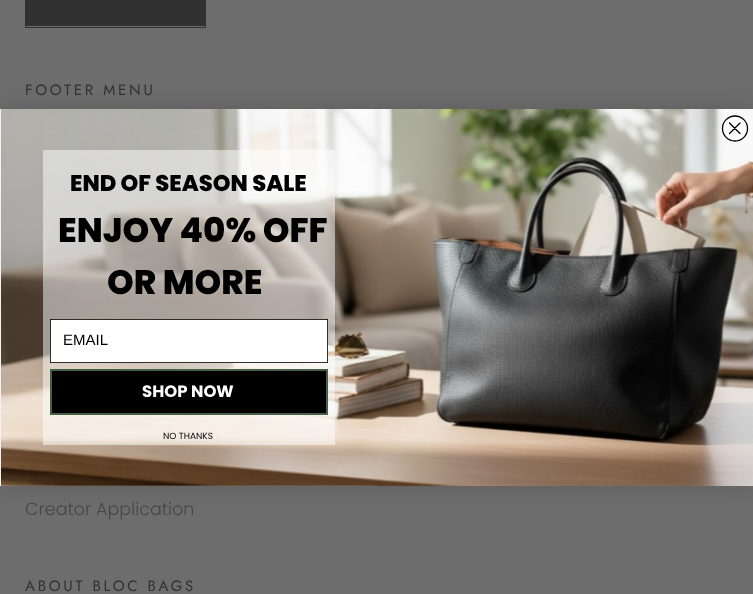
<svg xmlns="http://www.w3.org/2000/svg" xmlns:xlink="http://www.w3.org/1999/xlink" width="753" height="594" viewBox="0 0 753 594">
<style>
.cls-1{font:15px Jost;letter-spacing:2.75px;fill:#313131}
.cls-2{font:300 17.5px Poppins;fill:#464646}
.cls-3{font:800 22.6px Poppins;fill:#000000}
.cls-4{font:800 34px Poppins;fill:#000000}
.cls-5{font:15px Liberation Sans;fill:#000000}
.cls-6{font:bold 16.5px Poppins;fill:#ffffff}
.cls-7{font:9px Poppins;fill:#070606}
</style>
<rect width="100%" height="100%" fill="#6d6d6d"/>
<rect fill="#313131" x="26" y="0" width="179" height="26"/>
<rect fill="none" stroke="#313131" x="25.5" y="-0.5" width="180" height="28"/>
<rect fill="#000000" fill-opacity="0.15" filter="blur(11.5px)" x="0" y="109" width="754" height="377"/>
<rect fill="#f0f2f8" x="0" y="109" width="753" height="377"/>
<image xlink:href="image0.png" x="1" y="109" width="752" height="377"/>
<image xlink:href="image1.png" x="377" y="109" width="376" height="378"/>
<circle fill="#ffffff" stroke="#000000" stroke-width="1.3" cx="735" cy="128.5" r="12.5"/>
<path fill="none" stroke="#000000" stroke-width="1.3" stroke-linecap="round" stroke-linejoin="round" d="M729.5 123L740 133.5M729.5 133.5L740 123Z"/>
<rect fill="#ffffff" fill-opacity="0.5" x="43" y="150" width="292" height="169"/>
<rect fill="#ffffff" fill-opacity="0.5" x="43" y="319" width="292" height="44"/>
<rect fill="#ffffff" stroke="#000000" stroke-width="0.8" x="50.4" y="319.4" width="277.2" height="43.2"/>
<rect fill="#ffffff" fill-opacity="0.5" x="43" y="363" width="292" height="65"/>
<rect fill="#000000" stroke="#475f47" stroke-width="2" x="51" y="370" width="276" height="44"/>
<rect fill="#ffffff" fill-opacity="0.5" x="43" y="428" width="292" height="17"/>
<text class="cls-1" x="25" y="95">FOOTER MENU</text>
<text class="cls-2" x="25" y="515">Creator Application</text>
<text class="cls-1" x="25" y="591">ABOUT BLOC BAGS</text>
<text class="cls-3" x="70" y="191">END OF SEASON SALE</text>
<text class="cls-4" x="58" y="242">ENJOY 40% OFF</text>
<text class="cls-4" x="107" y="294">OR MORE</text>
<text class="cls-5" x="63" y="345">EMAIL</text>
<text class="cls-6" x="142" y="397">SHOP NOW</text>
<text class="cls-7" x="163" y="439">NO THANKS</text>
</svg>
